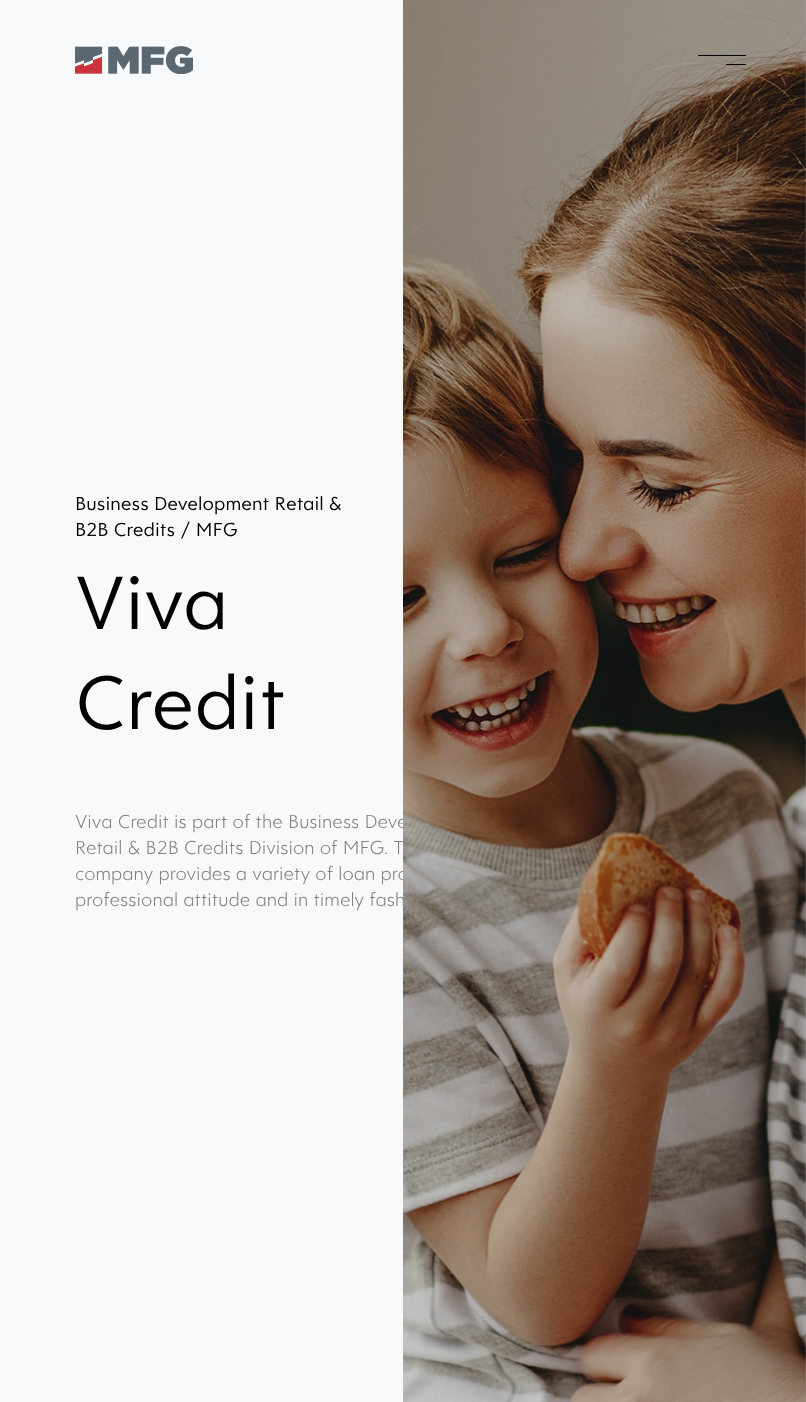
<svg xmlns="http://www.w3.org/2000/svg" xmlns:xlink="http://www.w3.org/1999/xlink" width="806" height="1402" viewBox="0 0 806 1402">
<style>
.cls-1{font:20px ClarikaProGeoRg;fill:#000000}
.cls-2{font:80px ClarikaProGeoRg;fill:#000000}
.cls-3{font:300 20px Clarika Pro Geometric;fill:#818181}
</style>
<rect width="100%" height="100%" fill="#f8f9fa"/>
<image xlink:href="image0.png" x="75" y="46" width="118" height="28"/>
<text class="cls-1"><tspan x="75" y="510">Business Development Retail &amp;</tspan><tspan x="75" y="536">B2B Credits / MFG</tspan></text>
<text class="cls-2"><tspan x="75" y="629">Viva</tspan><tspan x="75" y="729">Credit</tspan></text>
<text class="cls-3"><tspan x="75" y="828">Viva Credit is part of the Business Deve</tspan><tspan x="75" y="854">Retail &amp; B2B Credits Division of MFG. T</tspan><tspan x="75" y="880">company provides a variety of loan pro</tspan><tspan x="75" y="906">professional attitude and in timely fash</tspan></text>
<image xlink:href="image1.png" x="403" y="0" width="403" height="1402"/>
<rect fill="#000000" fill-opacity="0.24" x="403" y="0" width="403" height="1402"/>
<rect fill="#000000" x="726" y="64" width="20" height="1"/>
<rect fill="#000000" x="698" y="55" width="48" height="1"/>
</svg>
